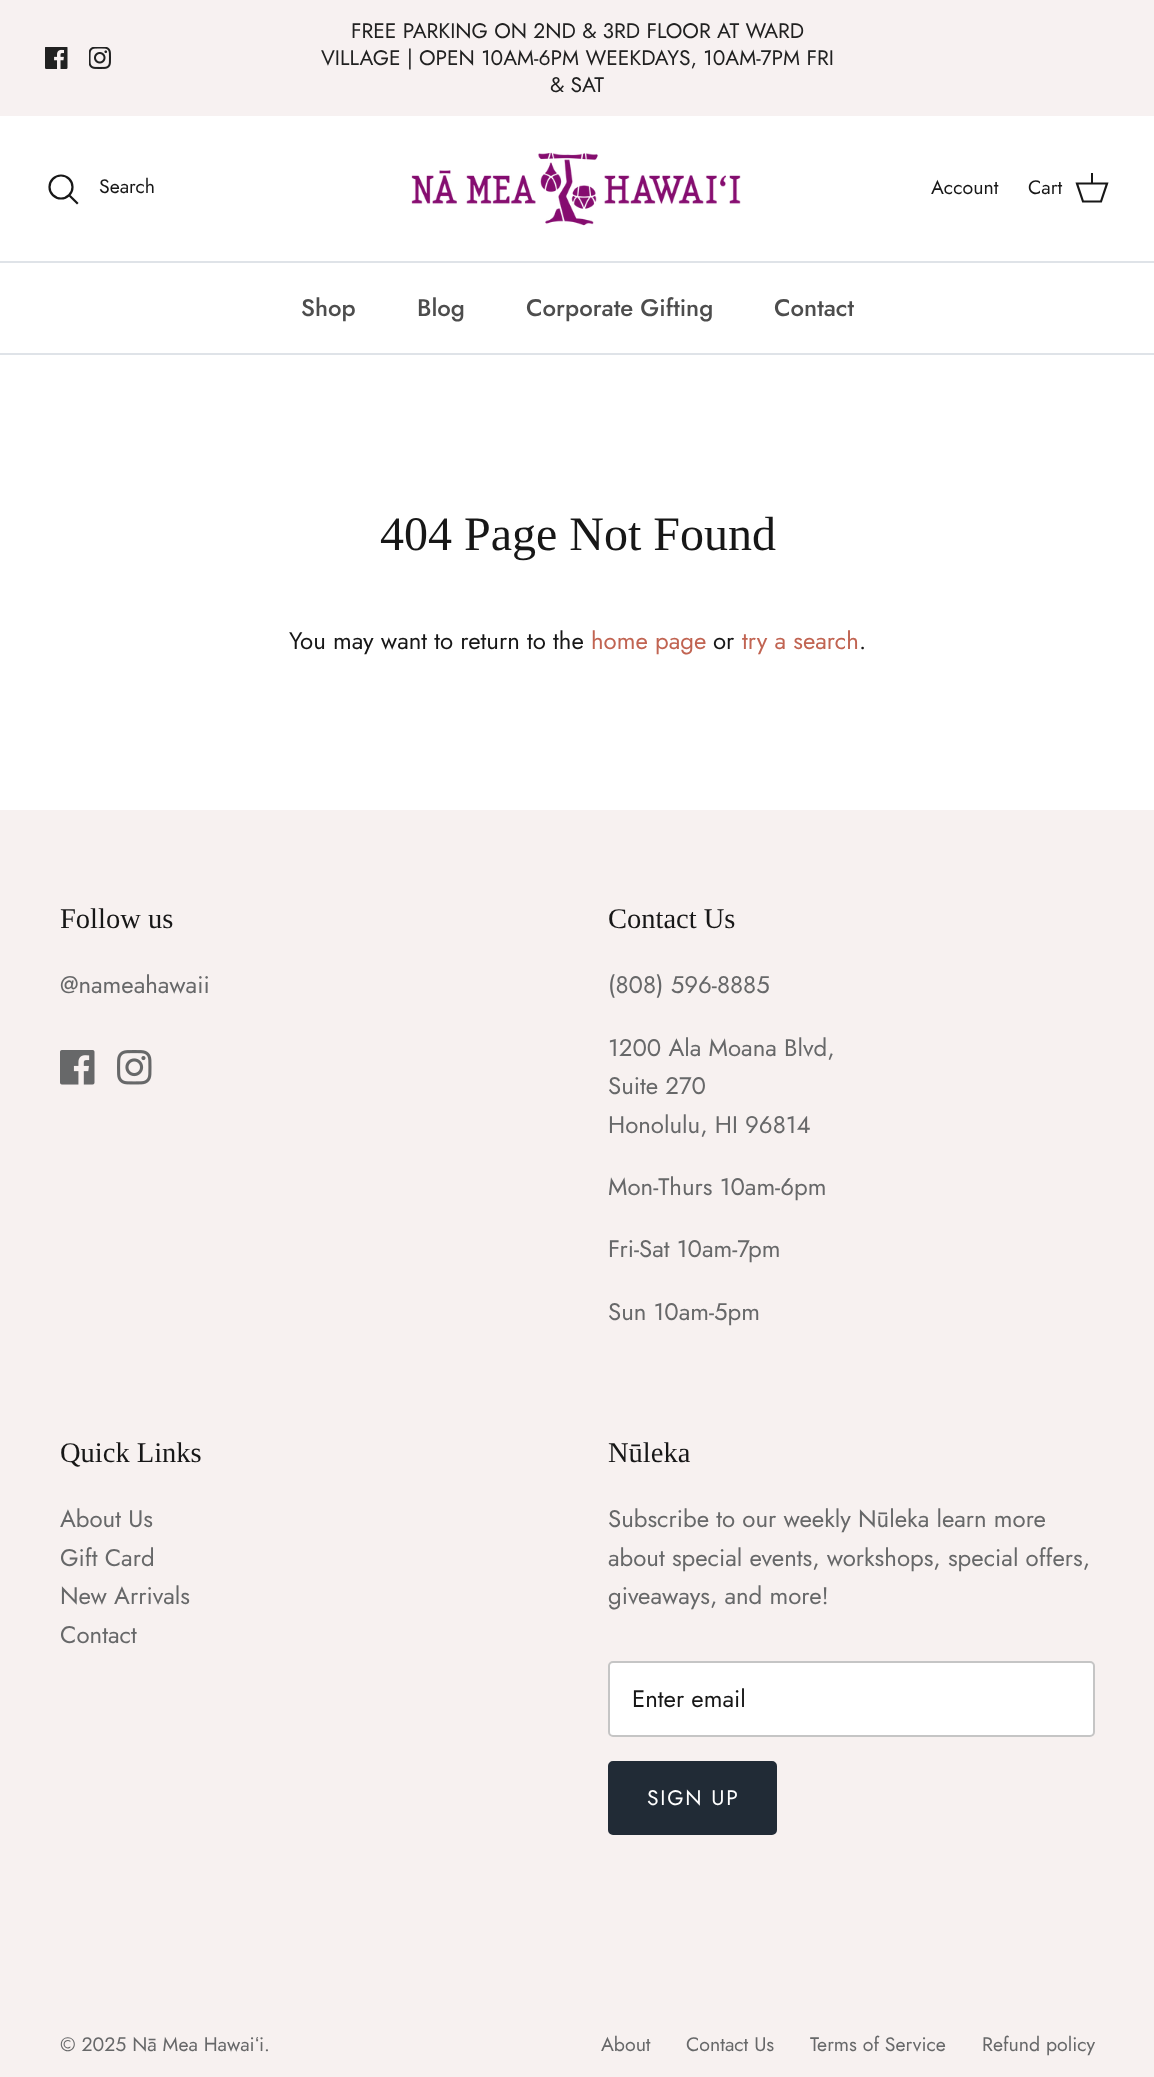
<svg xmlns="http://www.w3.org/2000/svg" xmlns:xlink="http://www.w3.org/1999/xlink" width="1154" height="2077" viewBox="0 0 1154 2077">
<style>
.cls-1{font:21px Jost;fill:#212121}
.cls-2{font:19.5px Jost;fill:#171717}
.cls-3{font:500 24px Jost;fill:#4d4d4d}
.cls-4{font:48px Liberation Serif;fill:#171717}
.cls-5{font:24px Jost;fill:#171717}
.cls-6{font:24px Jost;fill:#c16452}
.cls-7{font:28.5px Liberation Serif;fill:#171717}
.cls-8{font:24px Jost;fill:#676869}
.cls-9{font:21px Jost;letter-spacing:1.75px;fill:#ffffff}
.cls-10{font:19.5px Jost;fill:#676869}
.cls-11{font:19.5px Liberation Sans;fill:#676869}
</style>
<rect width="100%" height="100%" fill="#ffffff"/>
<rect fill="#f7f1f1" x="0" y="0" width="1154" height="116"/>
<image xlink:href="image0.png" x="45" y="47" width="23" height="22"/>
<image xlink:href="image1.png" x="89" y="47" width="22" height="22"/>
<rect fill="#dfe3e8" x="0" y="261" width="1154" height="2"/>
<circle fill="none" stroke="#171717" stroke-width="2.2" cx="61" cy="187" r="11.5"/>
<path fill="none" stroke="#171717" stroke-width="2.2" stroke-linecap="square" d="M70.5 196.5L77 203"/>
<image xlink:href="image2.png" x="411" y="152" width="330" height="74"/>
<path fill="none" stroke="#171717" stroke-width="2.2" d="M1077 183.5H1107L1101 201.5H1083Z"/>
<rect fill="#171717" x="1091" y="173" width="2" height="11"/>
<rect fill="#dfe3e8" x="0" y="353" width="1154" height="2"/>
<rect fill="#f7f1f0" x="0" y="810" width="1154" height="1267"/>
<image xlink:href="image3.png" x="60" y="1050" width="35" height="35"/>
<image xlink:href="image4.png" x="117" y="1050" width="35" height="35"/>
<rect fill="#ffffff" stroke="#c5c5c5" stroke-width="2" x="609" y="1662" width="485" height="74" rx="4"/>
<rect fill="#212b36" stroke="#212b36" stroke-width="2" x="609" y="1762" width="167" height="72" rx="4"/>
<text class="cls-1" x="351" y="38">FREE PARKING ON 2ND &amp; 3RD FLOOR AT WARD</text>
<text class="cls-1" x="321" y="65">VILLAGE | OPEN 10AM-6PM WEEKDAYS, 10AM-7PM FRI</text>
<text class="cls-1" x="550" y="92">&amp; SAT</text>
<text class="cls-2" x="99" y="193">Search</text>
<text class="cls-2" x="931" y="194">Account</text>
<text class="cls-2" x="1028" y="194">Cart</text>
<text class="cls-3" x="301" y="316">Shop</text>
<text class="cls-3" x="417" y="316">Blog</text>
<text class="cls-3" x="526" y="316">Corporate Gifting</text>
<text class="cls-3" x="774" y="316">Contact</text>
<text class="cls-4" x="380" y="550">404 Page Not Found</text>
<text class="cls-5" x="289" y="649">You may want to return to the</text>
<text class="cls-6" x="591" y="649">home page</text>
<text class="cls-5" x="713" y="649">or</text>
<text class="cls-6" x="742" y="649">try a search</text>
<text class="cls-5" x="859" y="649">.</text>
<text class="cls-7" x="60" y="928">Follow us</text>
<text class="cls-8" x="60" y="993">@nameahawaii</text>
<text class="cls-7" x="608" y="928">Contact Us</text>
<text class="cls-8" x="608" y="993">(808) 596-8885</text>
<text class="cls-8"><tspan x="608" y="1056">1200 Ala Moana Blvd,</tspan><tspan x="608" y="1094">Suite 270</tspan><tspan x="608" y="1133">Honolulu, HI 96814</tspan></text>
<text class="cls-8" x="608" y="1195">Mon-Thurs 10am-6pm</text>
<text class="cls-8" x="608" y="1257">Fri-Sat 10am-7pm</text>
<text class="cls-8" x="608" y="1320">Sun 10am-5pm</text>
<text class="cls-7" x="60" y="1462">Quick Links</text>
<text class="cls-8"><tspan x="60" y="1527">About Us</tspan><tspan x="60" y="1566">Gift Card</tspan><tspan x="60" y="1604">New Arrivals</tspan><tspan x="60" y="1643">Contact</tspan></text>
<text class="cls-7" x="608" y="1462">Nūleka</text>
<text class="cls-8"><tspan x="608" y="1527">Subscribe to our weekly Nūleka learn more</tspan><tspan x="608" y="1566">about special events, workshops, special offers,</tspan><tspan x="608" y="1604">giveaways, and more!</tspan></text>
<text class="cls-5" x="632" y="1707">Enter email</text>
<text class="cls-9" x="647" y="1805">SIGN UP</text>
<text class="cls-10" x="60" y="2051">© 2025 Nā Mea Hawai</text>
<text class="cls-11" x="255" y="2051">ʻ</text>
<text class="cls-10" x="259" y="2051">i.</text>
<text class="cls-10" x="601" y="2051">About</text>
<text class="cls-10" x="686" y="2051">Contact Us</text>
<text class="cls-10" x="810" y="2051">Terms of Service</text>
<text class="cls-10" x="982" y="2051">Refund policy</text>
</svg>
